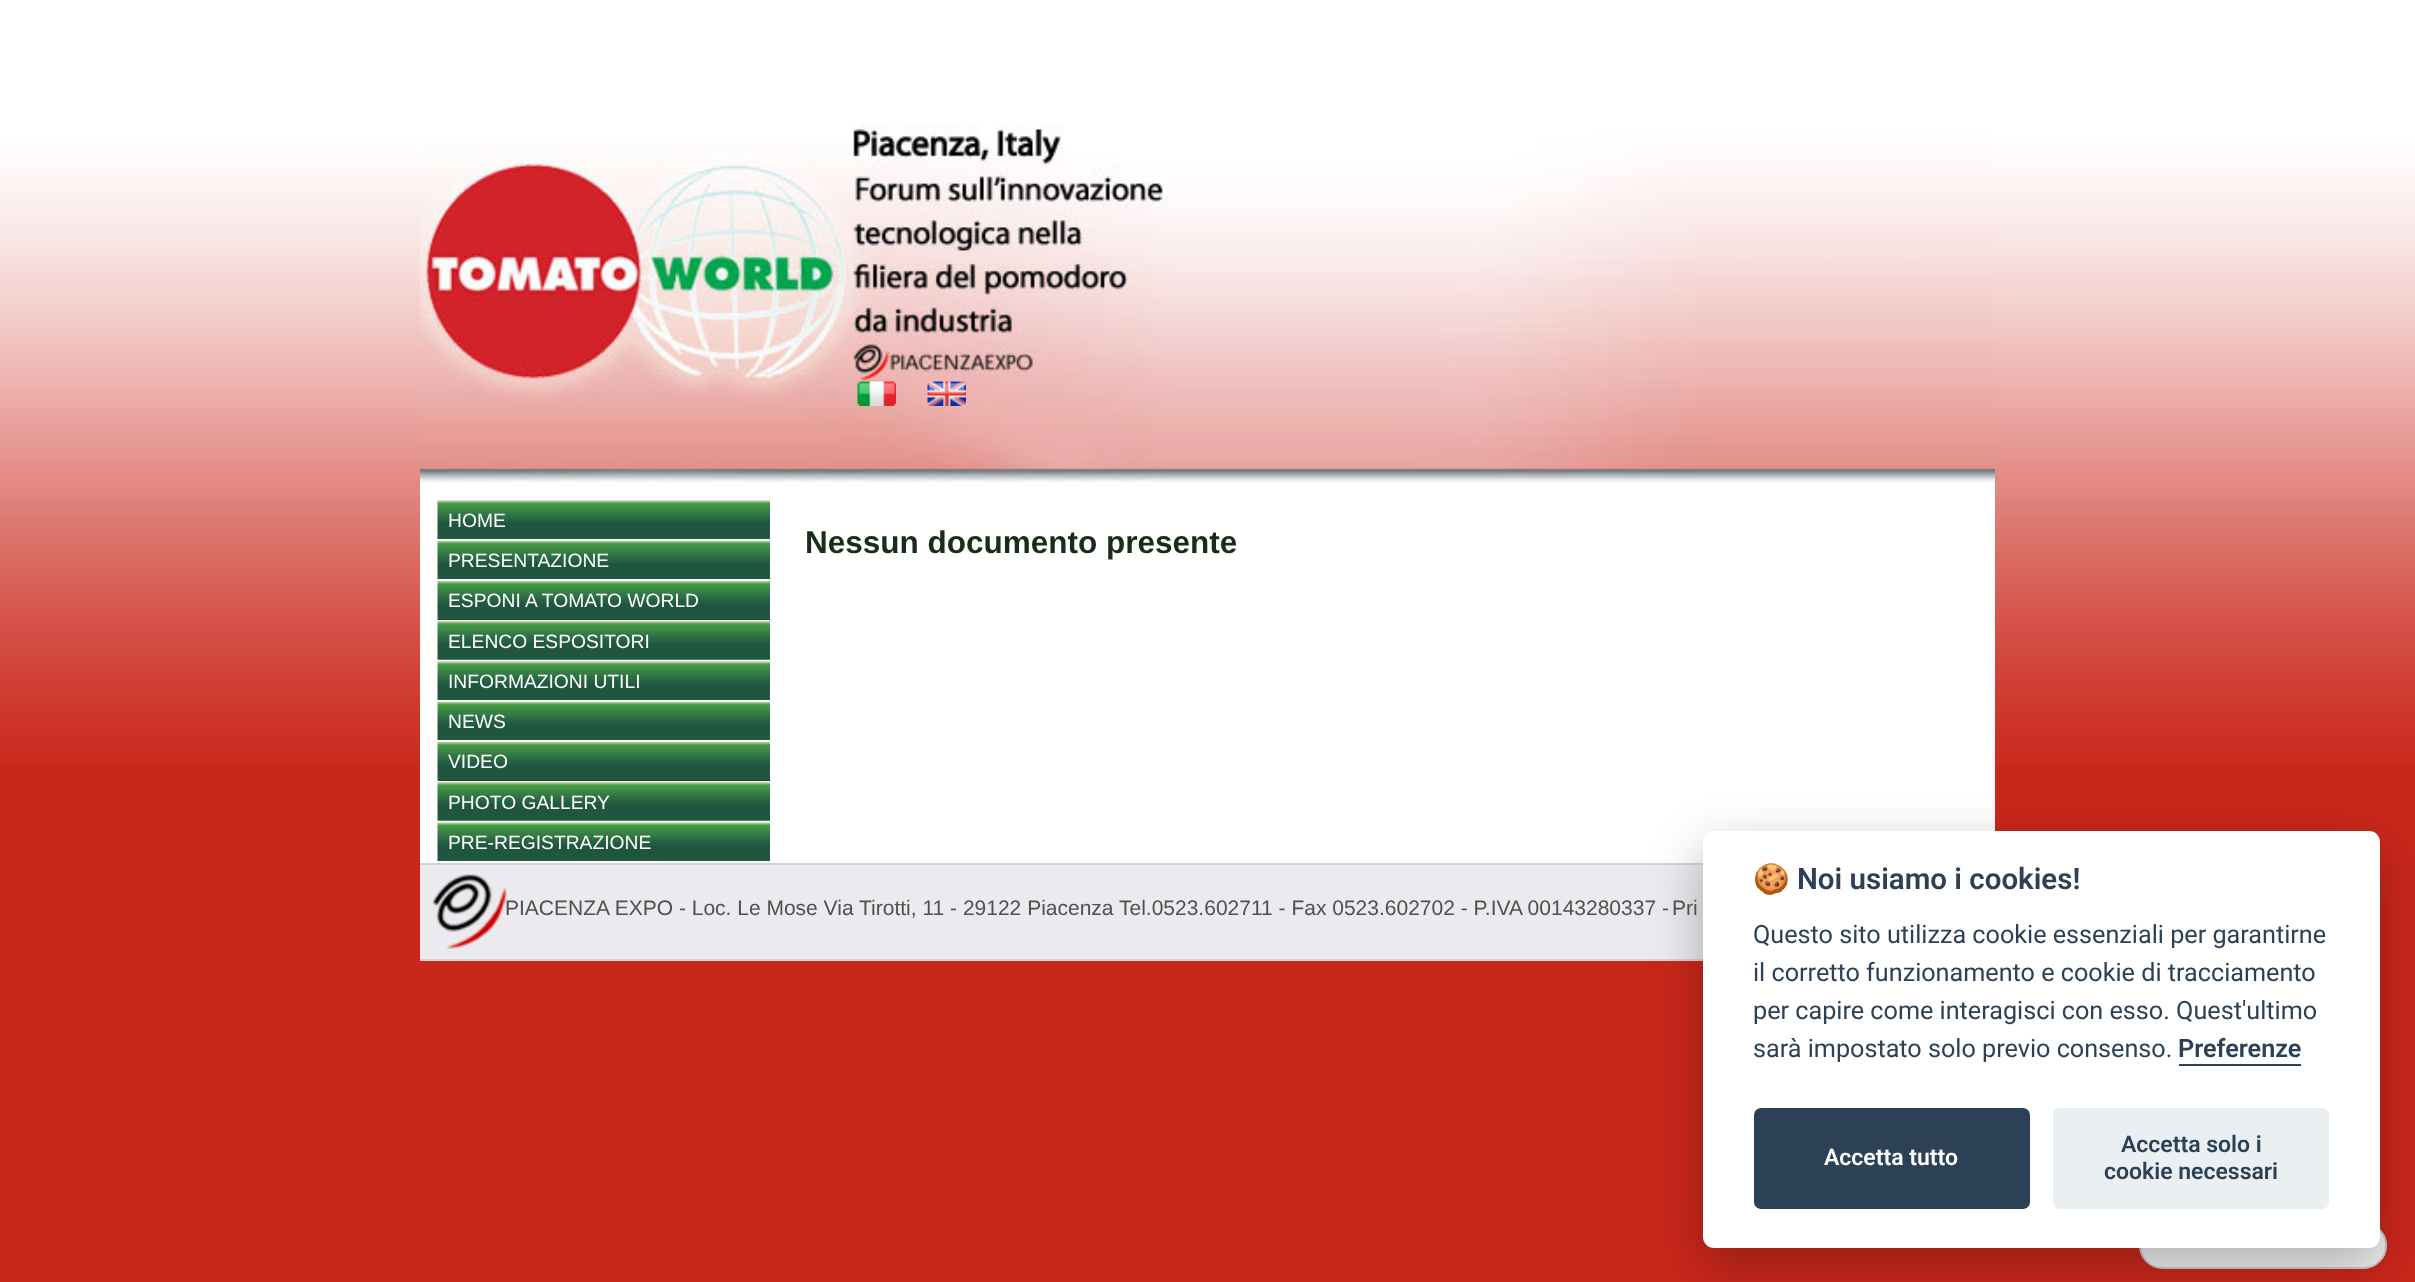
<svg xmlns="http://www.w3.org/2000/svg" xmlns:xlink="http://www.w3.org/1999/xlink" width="2415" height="1282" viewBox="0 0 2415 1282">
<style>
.cls-1{font:19.25px Liberation Sans;fill:#ffffff}
.cls-2{font:bold 31.5px Liberation Sans;fill:#182c19}
.cls-3{font:21px Liberation Sans;fill:#50504f}
.cls-4{font:bold 29.5px Noto Color Emoji;fill:#2d4156}
.cls-5{font:600 29.5px Roboto;fill:#2d4156}
.cls-6{font:25.2px Roboto;fill:#2d4156}
.cls-7{font:600 25.2px Roboto;fill:#2d4156}
.cls-8{font:600 23px Roboto;fill:#ffffff}
.cls-9{font:600 23px Roboto;fill:#2d4156}
</style>
<rect width="100%" height="100%" fill="#ca271b"/>
<image xlink:href="image0.png" x="0" y="0" width="2415" height="765"/>
<image xlink:href="image1.png" x="420" y="124" width="1575" height="359"/>
<image xlink:href="image2.png" x="857" y="381" width="39" height="25"/>
<image xlink:href="image3.png" x="927" y="381" width="39" height="25"/>
<rect fill="#ffffff" x="420" y="483" width="1575" height="380"/>
<image xlink:href="image4.png" x="437" y="500" width="333" height="39"/>
<image xlink:href="image5.png" x="437" y="540" width="333" height="40"/>
<rect fill="#ffffff" x="438" y="579" width="332" height="1"/>
<rect fill="#182c19" x="438" y="619" width="332" height="1"/>
<image xlink:href="image6.png" x="437" y="581" width="333" height="39"/>
<image xlink:href="image7.png" x="437" y="621" width="333" height="39"/>
<image xlink:href="image4.png" x="437" y="661" width="333" height="39"/>
<image xlink:href="image5.png" x="437" y="701" width="333" height="40"/>
<rect fill="#ffffff" x="438" y="740" width="332" height="1"/>
<rect fill="#182c19" x="438" y="780" width="332" height="1"/>
<image xlink:href="image6.png" x="437" y="742" width="333" height="39"/>
<image xlink:href="image7.png" x="437" y="782" width="333" height="39"/>
<image xlink:href="image4.png" x="437" y="822" width="333" height="39"/>
<rect fill="#ebeaee" x="420" y="865" width="1283" height="94"/>
<image xlink:href="image8.png" x="432" y="874" width="75" height="75"/>
<rect fill="#d2d4d5" x="420" y="863" width="1283" height="2"/>
<rect fill="#d2d4d5" x="420" y="959" width="1283" height="2"/>
<rect fill="#efefef" stroke="#cccccc" stroke-width="2" x="2140" y="1223" width="246" height="45" rx="22.5"/>
<rect fill="#020203" fill-opacity="0.28" filter="blur(26px)" x="1703" y="849" width="677" height="416" rx="11"/>
<rect fill="#ffffff" x="1703" y="831" width="677" height="417" rx="11"/>
<rect fill="#2d4156" x="2179" y="1064" width="122" height="2"/>
<rect fill="#2d4156" x="1754" y="1108" width="276" height="101" rx="7"/>
<rect fill="#eaeff2" x="2053" y="1108" width="276" height="101" rx="7"/>
<text class="cls-1" x="448" y="527">HOME</text>
<text class="cls-1" x="448" y="567">PRESENTAZIONE</text>
<text class="cls-1" x="448" y="607">ESPONI A TOMATO WORLD</text>
<text class="cls-1" x="448" y="648">ELENCO ESPOSITORI</text>
<text class="cls-1" x="448" y="688">INFORMAZIONI UTILI</text>
<text class="cls-1" x="448" y="728">NEWS</text>
<text class="cls-1" x="448" y="768">VIDEO</text>
<text class="cls-1" x="448" y="809">PHOTO GALLERY</text>
<text class="cls-1" x="448" y="849">PRE-REGISTRAZIONE</text>
<text class="cls-2" x="805" y="553">Nessun documento presente</text>
<text class="cls-3" x="505" y="915">PIACENZA EXPO - Loc. Le Mose Via Tirotti, 11 - 29122 Piacenza Tel.0523.602711 - Fax 0523.602702 - P.IVA 00143280337 -</text>
<text class="cls-3" x="1672" y="915">Pri</text>
<text class="cls-4" x="1753" y="889">🍪</text>
<text class="cls-5" x="1797" y="889">Noi usiamo i cookies!</text>
<text class="cls-6"><tspan x="1753" y="943">Questo sito utilizza cookie essenziali per garantirne</tspan><tspan x="1753" y="981">il corretto funzionamento e cookie di tracciamento</tspan><tspan x="1753" y="1019">per capire come interagisci con esso. Quest'ultimo</tspan><tspan x="1753" y="1057">sarà impostato solo previo consenso.</tspan></text>
<text class="cls-7" x="2178" y="1057">Preferenze</text>
<text class="cls-8" x="1824" y="1165">Accetta tutto</text>
<text class="cls-9" x="2121" y="1152">Accetta solo i</text>
<text class="cls-9" x="2104" y="1179">cookie necessari</text>
</svg>
